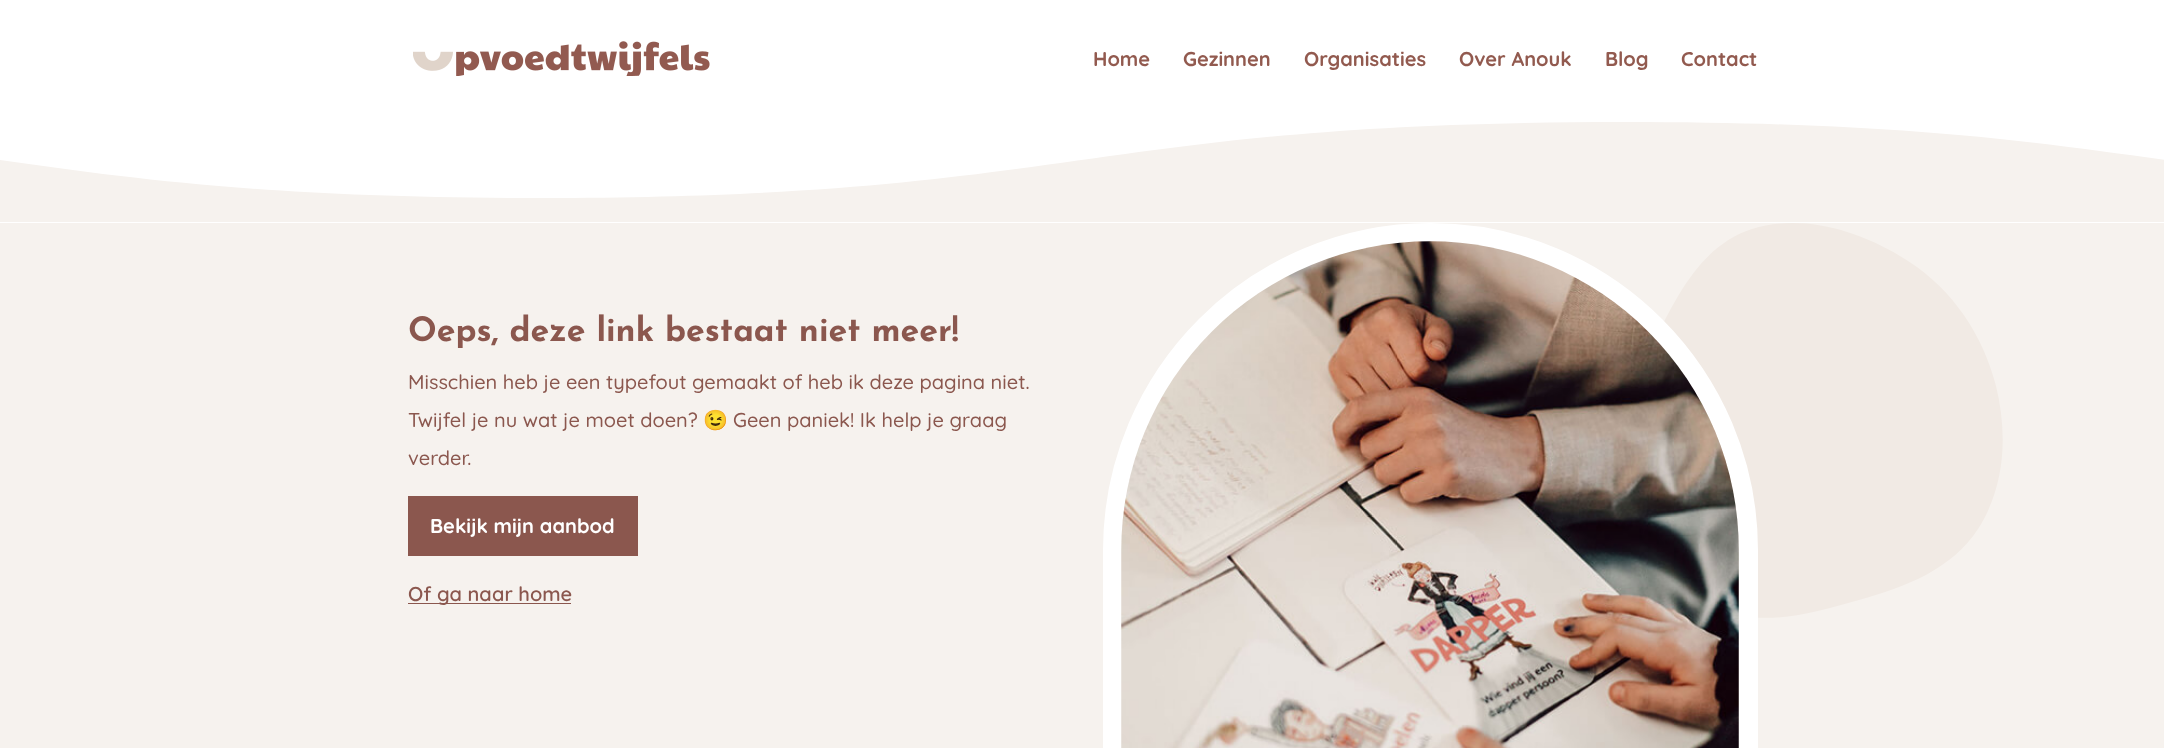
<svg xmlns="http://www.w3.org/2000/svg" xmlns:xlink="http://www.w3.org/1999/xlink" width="2164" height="748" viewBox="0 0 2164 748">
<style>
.cls-1{font:300 20px 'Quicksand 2';fill:#925a4f}
.cls-2{font:100 33.75px Josefin Sans;fill:#8b574e}
.cls-3{font:300 20px Quicksand;fill:#8b574e}
.cls-4{font:20px Noto Color Emoji;fill:#8b574e}
.cls-5{font:300 20px 'Quicksand 2';fill:#ffffff}
.cls-6{font:600 20px Quicksand;fill:#8b574e}
</style>
<rect width="100%" height="100%" fill="#ffffff"/>
<image xlink:href="image0.png" x="413" y="41" width="297" height="35"/>
<path fill="#f6f2ee" d="M1624 122C1082 122 1082 198 541 198C271 198 135 179 0 160V222H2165V160C2030 141 1894 122 1624 122Z"/>
<rect fill="#f6f2ee" x="0" y="223" width="2164" height="525"/>
<path fill="#f1eae4" fill-rule="evenodd" d="M1710 604C1664 579 1643 526 1633 475C1623 429 1634 384 1654 342C1677 295 1702 245 1752 229C1803 213 1862 231 1908 261C1953 290 1983 335 1996 386C2008 435 2005 487 1978 529C1952 569 1906 587 1859 600C1810 614 1756 630 1710 604Z"/>
<rect fill="#8b574e" x="408" y="496" width="230" height="60"/>
<rect fill="#8b574e" x="408" y="603" width="163" height="1"/>
<path fill="none" stroke="#ffffff" stroke-width="19" d="M1430.5 232.5C1606 232.5 1748.5 375 1748.5 550.5V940.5H1112.5V550.5C1112.5 375 1255 232.5 1430.5 232.5Z"/>
<image xlink:href="image1.png" x="1121" y="241" width="618" height="507"/>
<text class="cls-1" x="1093" y="66">Home</text>
<text class="cls-1" x="1183" y="66">Gezinnen</text>
<text class="cls-1" x="1304" y="66">Organisaties</text>
<text class="cls-1" x="1459" y="66">Over Anouk</text>
<text class="cls-1" x="1605" y="66">Blog</text>
<text class="cls-1" x="1681" y="66">Contact</text>
<text class="cls-2" x="408" y="341">Oeps, deze link bestaat niet meer!</text>
<text class="cls-3"><tspan x="408" y="389">Misschien heb je een typefout gemaakt of heb ik deze pagina niet.</tspan><tspan x="408" y="427">Twijfel je nu wat je moet doen?</tspan></text>
<text class="cls-4" x="703" y="427">😉</text>
<text class="cls-3" x="733" y="427">Geen paniek! Ik help je graag</text>
<text class="cls-3" x="408" y="465">verder.</text>
<text class="cls-5" x="430" y="533">Bekijk mijn aanbod</text>
<text class="cls-6" x="408" y="601">Of ga naar home</text>
</svg>
